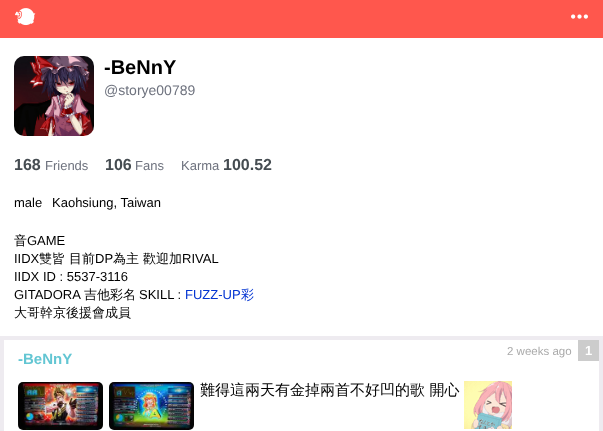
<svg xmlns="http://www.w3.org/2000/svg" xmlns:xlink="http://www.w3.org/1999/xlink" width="603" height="431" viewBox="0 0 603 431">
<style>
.cls-1{font:bold 20px Liberation Sans;fill:#000000}
.cls-2{font:14px Liberation Sans;fill:#6e727e}
.cls-3{font:bold 16px Liberation Sans;fill:#454c51}
.cls-4{font:13px Liberation Sans;fill:#6e727e}
.cls-5{font:13px Liberation Sans;fill:#000000}
.cls-6{font:500 13px WenQuanYi Zen Hei;fill:#000000}
.cls-7{font:13px Liberation Sans;fill:#0435d2}
.cls-8{font:500 13px WenQuanYi Zen Hei;fill:#0435d2}
.cls-9{font:bold 15px Liberation Sans;fill:#63c6d3}
.cls-10{font:11.5px Liberation Sans;fill:#aaaaaa}
.cls-11{font:bold 13px Liberation Sans;fill:#ffffff}
.cls-12{font:500 15px WenQuanYi Zen Hei;fill:#000000}
</style>
<rect width="100%" height="100%" fill="#ffffff"/>
<rect fill="#ff574d" x="0" y="0" width="603" height="38"/>
<image xlink:href="image0.png" x="15" y="8" width="21" height="18"/>
<image xlink:href="image1.png" x="571" y="14" width="17" height="5"/>
<image xlink:href="image2.png" x="14" y="56" width="80" height="80"/>
<rect fill="#eeebf0" x="0" y="336" width="603" height="95"/>
<rect fill="#ffffff" x="4" y="340" width="595" height="91"/>
<rect fill="#cccccc" x="578" y="340" width="21" height="21"/>
<image xlink:href="image3.png" x="18" y="382" width="85" height="48"/>
<image xlink:href="image4.png" x="109" y="382" width="85" height="48"/>
<image xlink:href="image5.png" x="464" y="381" width="48" height="48"/>
<text class="cls-1" x="104" y="74">-BeNnY</text>
<text class="cls-2" x="104" y="95">@storye00789</text>
<text class="cls-3" x="14" y="170">168</text>
<text class="cls-4" x="45" y="170">Friends</text>
<text class="cls-3" x="105" y="170">106</text>
<text class="cls-4" x="135" y="170">Fans</text>
<text class="cls-4" x="181" y="170">Karma</text>
<text class="cls-3" x="223" y="170">100.52</text>
<text class="cls-5" x="14" y="207">male</text>
<text class="cls-5" x="52" y="207">Kaohsiung, Taiwan</text>
<text class="cls-6" x="14" y="245">音</text>
<text class="cls-5" x="27" y="245">GAME</text>
<text class="cls-5" x="14" y="263">IIDX</text>
<text class="cls-6" x="39" y="263">雙皆 目前</text>
<text class="cls-5" x="95" y="263">DP</text>
<text class="cls-6" x="113" y="263">為主 歡迎加</text>
<text class="cls-5" x="182" y="263">RIVAL</text>
<text class="cls-5"><tspan x="14" y="281">IIDX ID : 5537-3116</tspan><tspan x="14" y="299">GITADORA</tspan></text>
<text class="cls-6" x="84" y="299">吉他彩名</text>
<text class="cls-5" x="139" y="299">SKILL :</text>
<text class="cls-7" x="185" y="299">FUZZ-UP</text>
<text class="cls-8" x="241" y="299">彩</text>
<text class="cls-6" x="14" y="317">大哥幹京後援會成員</text>
<text class="cls-9" x="18" y="364">-BeNnY</text>
<text class="cls-10" x="507" y="355">2 weeks ago</text>
<text class="cls-11" x="585" y="355">1</text>
<text class="cls-12" x="200" y="395">難得這兩天有金掉兩首不好凹的歌 開心</text>
</svg>
